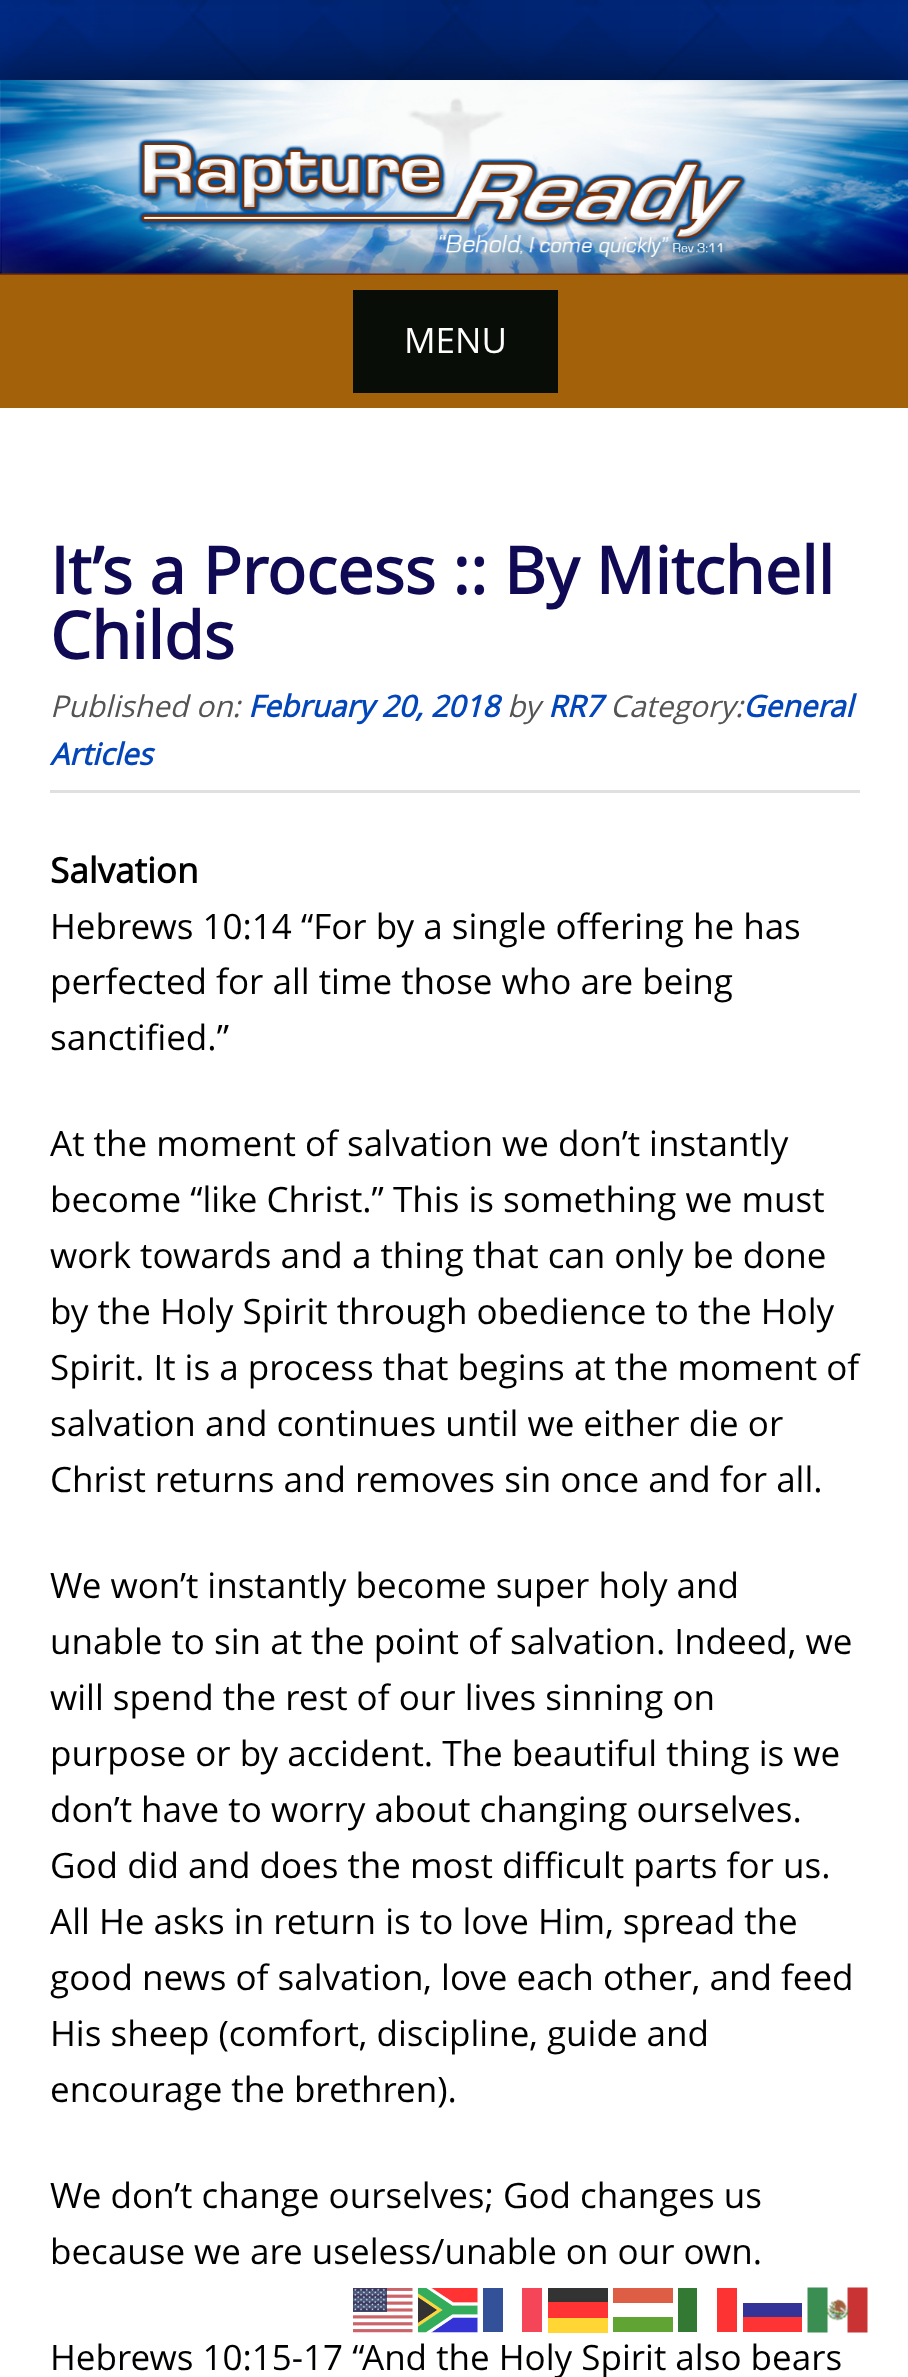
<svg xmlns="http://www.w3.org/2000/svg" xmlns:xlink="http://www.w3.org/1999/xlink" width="908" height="2377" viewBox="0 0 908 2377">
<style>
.cls-1{font:35px Open Sans;fill:#ffffff}
.cls-2{font:bold 65px Open Sans;fill:#100954}
.cls-3{font:italic 30px Open Sans;fill:#545454}
.cls-4{font:italic bold 30px Open Sans;fill:#0346ba}
.cls-5{font:bold 35px Open Sans;fill:#000000}
.cls-6{font:35px Open Sans;fill:#000000}
</style>
<rect width="100%" height="100%" fill="#ffffff"/>
<image xlink:href="image0.png" x="0" y="0" width="908" height="80"/>
<rect fill="#000000" fill-opacity="0.5" filter="blur(25px)" x="-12" y="68" width="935" height="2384"/>
<image xlink:href="image1.png" x="0" y="80" width="908" height="195"/>
<rect fill="#a3620a" x="0" y="275" width="908" height="133"/>
<rect fill="#080d07" x="353" y="290" width="205" height="103"/>
<rect fill="#ffffff" x="0" y="408" width="908" height="1969"/>
<rect fill="#e0e0e0" x="50" y="790" width="810" height="3"/>
<image xlink:href="image2.png" x="353" y="2288" width="60" height="45"/>
<image xlink:href="image3.png" x="418" y="2288" width="60" height="45"/>
<rect fill="#335199" x="483" y="2288" width="20" height="44"/>
<rect fill="#f54659" x="522" y="2288" width="20" height="44"/>
<rect fill="#333333" x="548" y="2288" width="60" height="14"/>
<rect fill="#dd5d45" x="613" y="2288" width="60" height="15"/>
<rect fill="#337933" x="678" y="2288" width="19" height="44"/>
<rect fill="#fd3333" x="717" y="2288" width="20" height="44"/>
<image xlink:href="image4.png" x="807" y="2287" width="61" height="46"/>
<rect fill="#ff3333" x="548" y="2302" width="60" height="16"/>
<rect fill="#343498" x="743" y="2303" width="59" height="14"/>
<rect fill="#ffd633" x="548" y="2318" width="60" height="15"/>
<rect fill="#60a433" x="613" y="2317" width="60" height="15"/>
<rect fill="#fe3434" x="743" y="2317" width="59" height="15"/>
<text class="cls-1" x="404" y="353">MENU</text>
<text class="cls-2"><tspan x="50" y="594">It’s a Process :: By Mitchell</tspan><tspan x="50" y="659">Childs</tspan></text>
<text class="cls-3" x="50" y="717">Published on:</text>
<text class="cls-4" x="248" y="717">February 20, 2018</text>
<text class="cls-3" x="507" y="717">by</text>
<text class="cls-4" x="548" y="717">RR7</text>
<text class="cls-3" x="610" y="717">Category:</text>
<text class="cls-4" x="743" y="717">General</text>
<text class="cls-4" x="50" y="765">Articles</text>
<text class="cls-5" x="50" y="883">Salvation</text>
<text class="cls-6"><tspan x="50" y="939">Hebrews 10:14 “For by a single offering he has</tspan><tspan x="50" y="994">perfected for all time those who are being</tspan><tspan x="50" y="1050">sanctified.”</tspan></text>
<text class="cls-6"><tspan x="50" y="1156">At the moment of salvation we don’t instantly</tspan><tspan x="50" y="1212">become “like Christ.” This is something we must</tspan><tspan x="50" y="1268">work towards and a thing that can only be done</tspan><tspan x="50" y="1324">by the Holy Spirit through obedience to the Holy</tspan><tspan x="50" y="1380">Spirit. It is a process that begins at the moment of</tspan><tspan x="50" y="1436">salvation and continues until we either die or</tspan><tspan x="50" y="1492">Christ returns and removes sin once and for all.</tspan></text>
<text class="cls-6"><tspan x="50" y="1598">We won’t instantly become super holy and</tspan><tspan x="50" y="1654">unable to sin at the point of salvation. Indeed, we</tspan><tspan x="50" y="1710">will spend the rest of our lives sinning on</tspan><tspan x="50" y="1766">purpose or by accident. The beautiful thing is we</tspan><tspan x="50" y="1822">don’t have to worry about changing ourselves.</tspan><tspan x="50" y="1878">God did and does the most difficult parts for us.</tspan><tspan x="50" y="1934">All He asks in return is to love Him, spread the</tspan><tspan x="50" y="1990">good news of salvation, love each other, and feed</tspan><tspan x="50" y="2046">His sheep (comfort, discipline, guide and</tspan><tspan x="50" y="2102">encourage the brethren).</tspan></text>
<text class="cls-6"><tspan x="50" y="2208">We don’t change ourselves; God changes us</tspan><tspan x="50" y="2264">because we are useless/unable on our own.</tspan></text>
<text class="cls-6" x="50" y="2370">Hebrews 10:15-17 “And the Holy Spirit also bears</text>
</svg>
